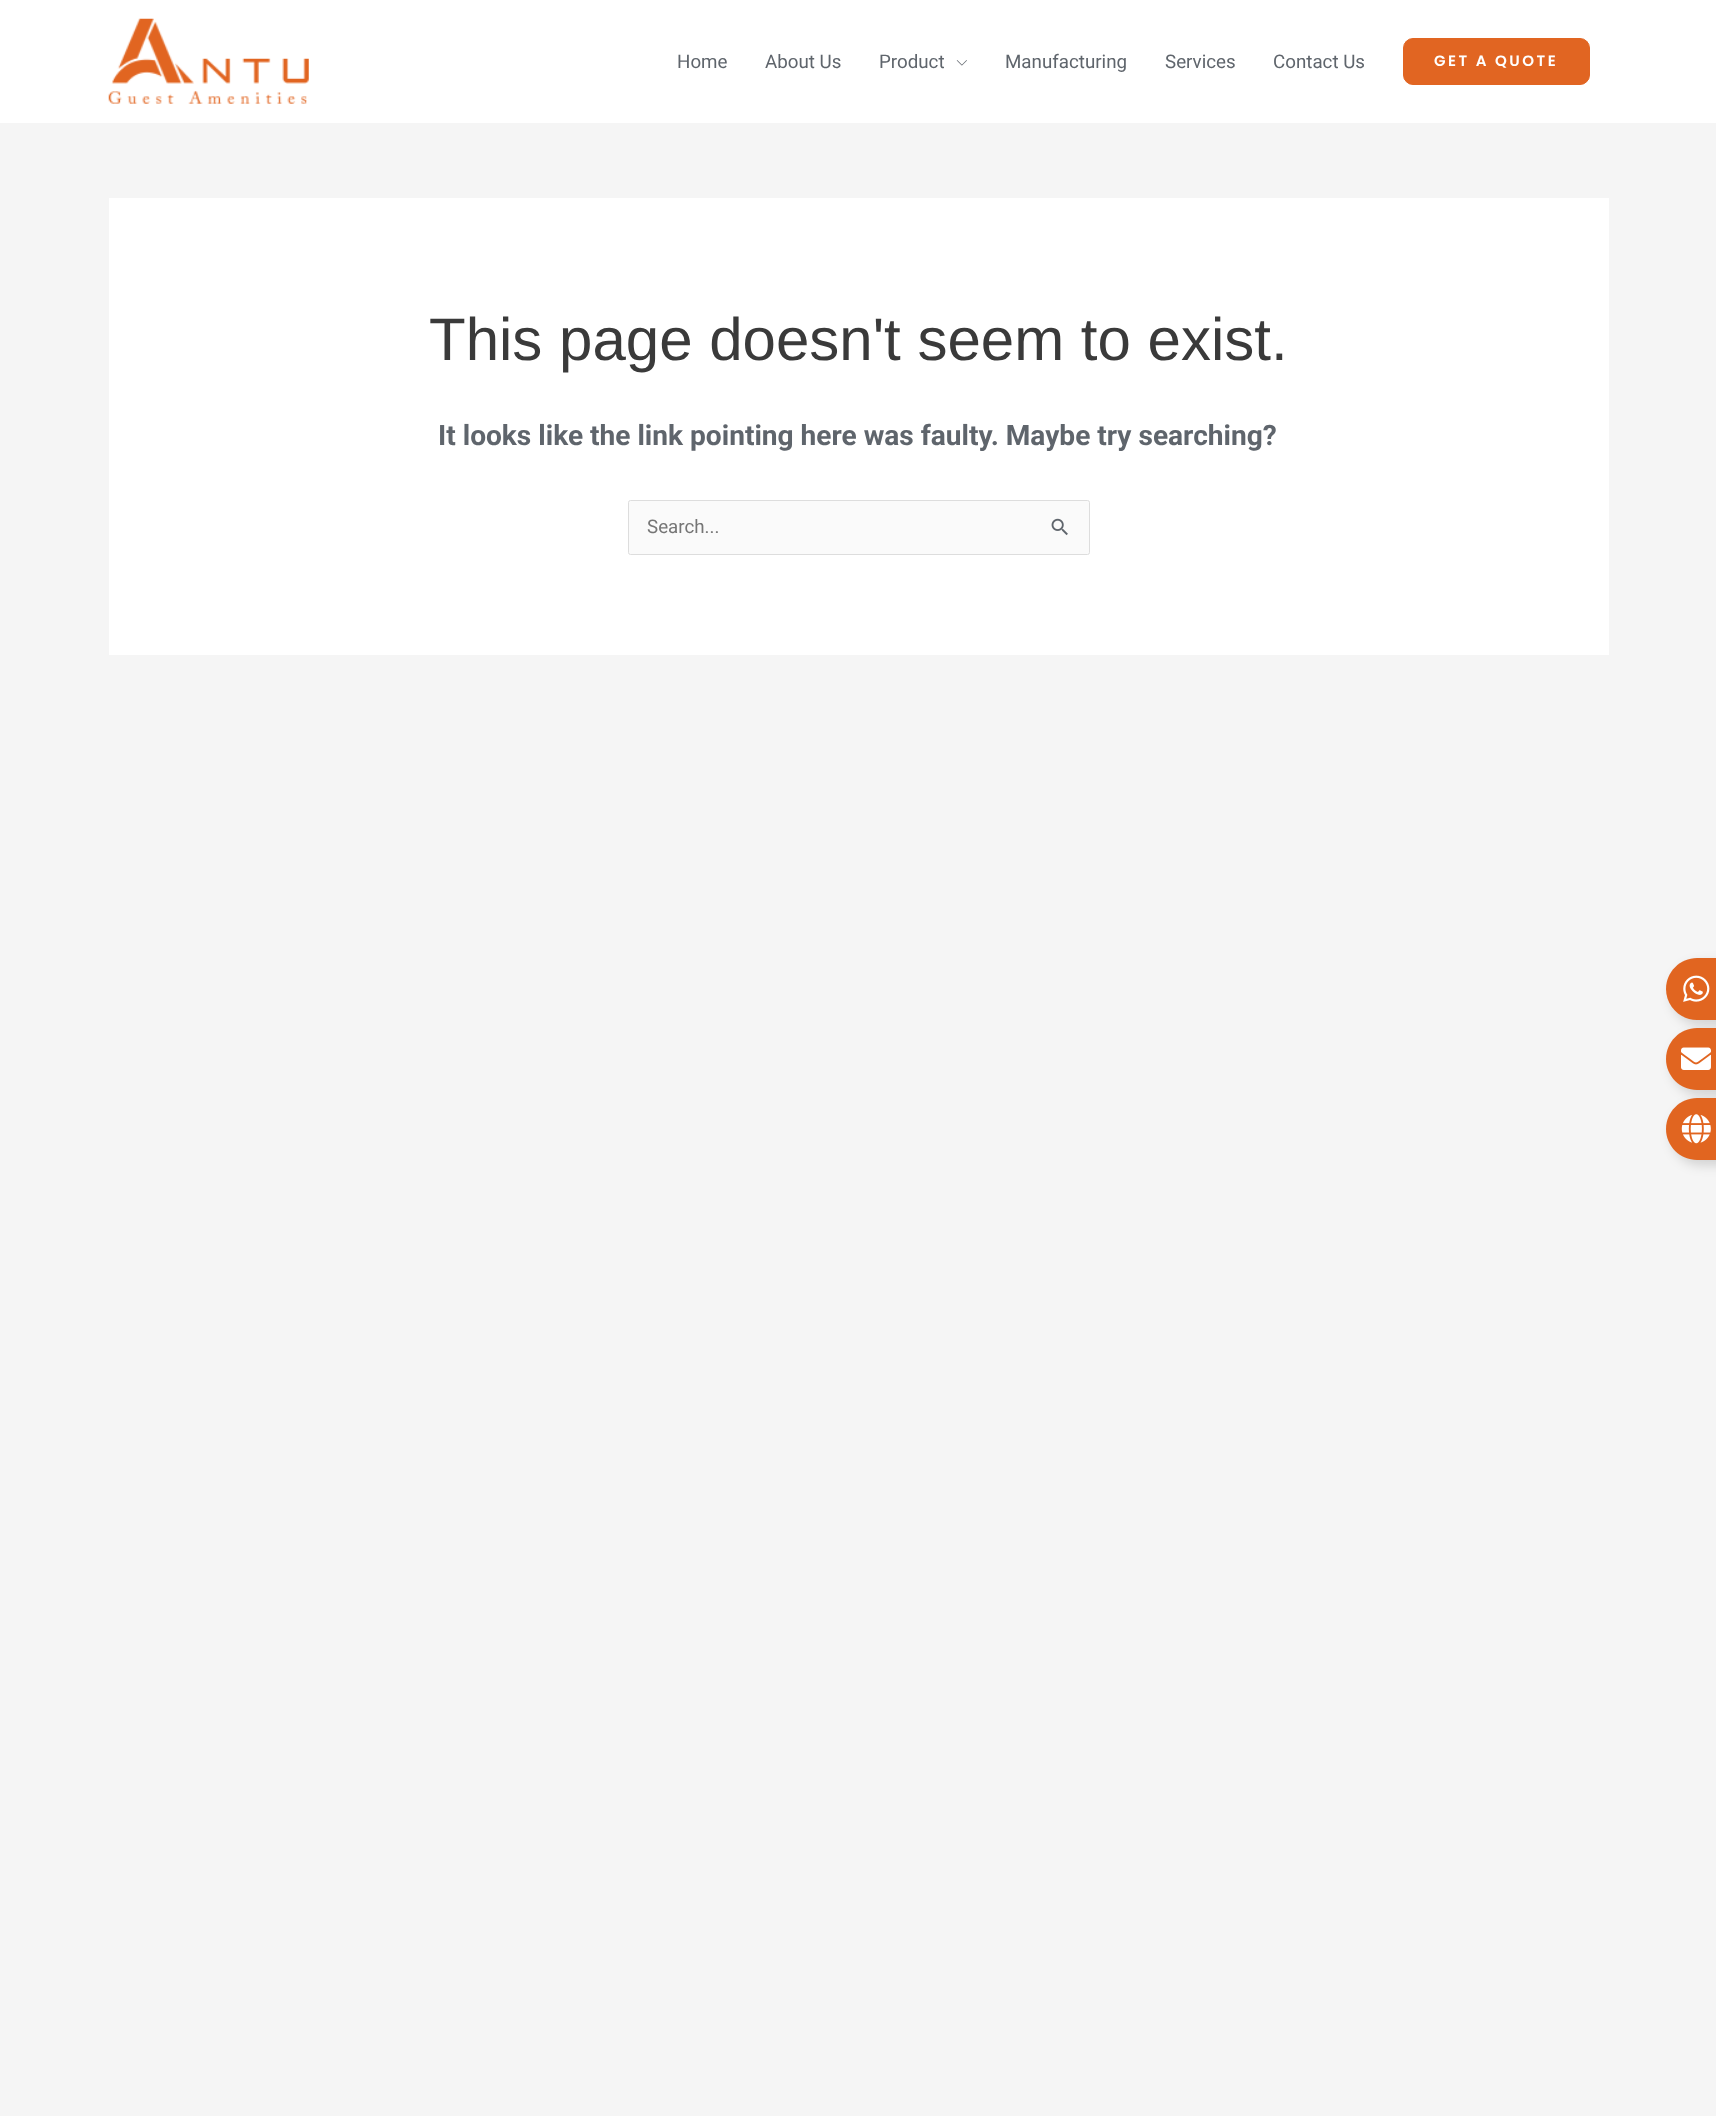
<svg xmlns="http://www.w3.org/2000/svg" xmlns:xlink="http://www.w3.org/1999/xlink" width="1716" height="2116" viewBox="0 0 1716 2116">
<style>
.cls-1{font:18.75px Roboto;fill:#5f656c}
.cls-2{font:600 15px Poppins;letter-spacing:2.5px;fill:#ffffff}
.cls-3{font:60px Liberation Sans;fill:#3a3a3a}
.cls-4{font:bold 28.1px Roboto;fill:#5f656c}
.cls-5{font:18.75px Roboto;fill:#757575}
</style>
<rect width="100%" height="100%" fill="#f5f5f5"/>
<rect fill="#ffffff" x="0" y="0" width="1716" height="123"/>
<image xlink:href="image0.png" x="108" y="18" width="201" height="86"/>
<image xlink:href="image1.png" x="956" y="60" width="11" height="6"/>
<rect fill="#e16522" stroke="#e16522" x="1403.5" y="38.5" width="186" height="46" rx="9.5"/>
<rect fill="#ffffff" x="109" y="198" width="1500" height="457"/>
<rect fill="#fafafa" stroke="#dddddd" x="628.5" y="500.5" width="461" height="54" rx="2"/>
<image xlink:href="image2.png" x="1051" y="518" width="17" height="18"/>
<rect fill="#000000" fill-opacity="0.15" filter="blur(6px)" x="1671" y="963" width="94" height="62" rx="31"/>
<path fill="#e16520" d="M1697 958H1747V1020H1697C1680 1020 1666 1006 1666 989C1666 972 1680 958 1697 958Z"/>
<image xlink:href="image3.png" x="1683" y="975" width="27" height="27"/>
<rect fill="#000000" fill-opacity="0.15" filter="blur(6px)" x="1671" y="1033" width="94" height="62" rx="31"/>
<path fill="#e16520" d="M1697 1028H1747V1090H1697C1680 1090 1666 1076 1666 1059C1666 1042 1680 1028 1697 1028Z"/>
<image xlink:href="image4.png" x="1681" y="1047" width="30" height="23"/>
<rect fill="#000000" fill-opacity="0.15" filter="blur(6px)" x="1671" y="1103" width="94" height="62" rx="31"/>
<path fill="#e16520" d="M1697 1098H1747V1160H1697C1680 1160 1666 1146 1666 1129C1666 1112 1680 1098 1697 1098Z"/>
<image xlink:href="image5.png" x="1681" y="1114" width="30" height="30"/>
<text class="cls-1" x="677" y="68">Home</text>
<text class="cls-1" x="765" y="68">About Us</text>
<text class="cls-1" x="879" y="68">Product</text>
<text class="cls-1" x="1005" y="68">Manufacturing</text>
<text class="cls-1" x="1165" y="68">Services</text>
<text class="cls-1" x="1273" y="68">Contact Us</text>
<text class="cls-2" x="1434" y="66">GET A QUOTE</text>
<text class="cls-3" x="429" y="360">This page doesn't seem to exist.</text>
<text class="cls-4" x="438" y="445">It looks like the link pointing here was faulty. Maybe try searching?</text>
<text class="cls-5" x="647" y="533">Search...</text>
</svg>
